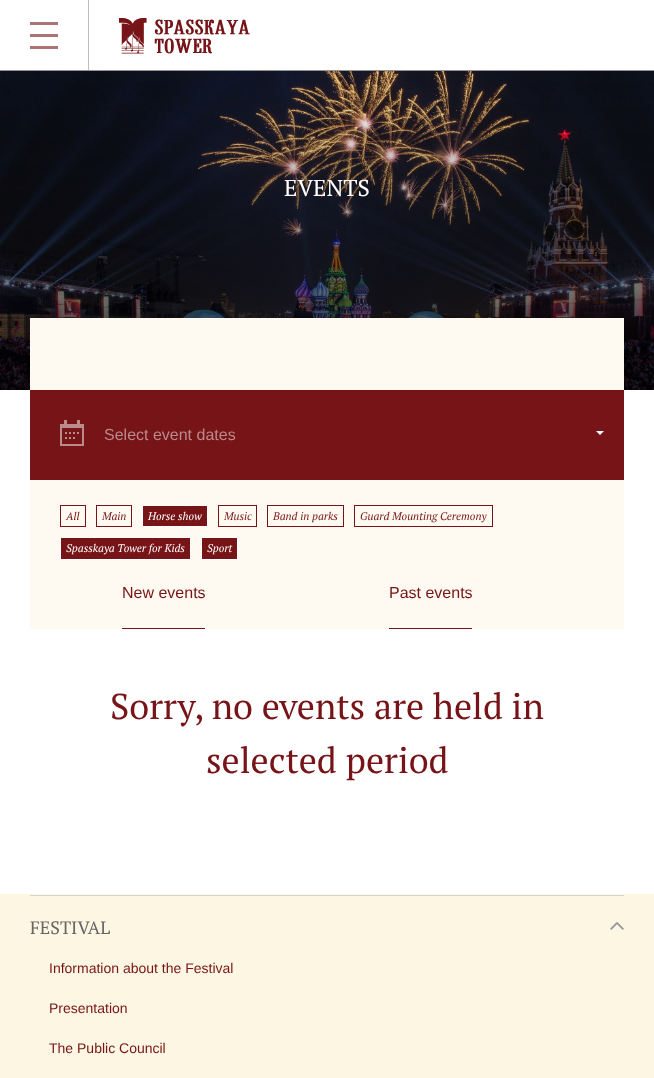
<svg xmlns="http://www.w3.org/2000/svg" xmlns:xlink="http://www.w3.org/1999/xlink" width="654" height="1078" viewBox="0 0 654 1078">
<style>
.cls-1{font:23px PT Serif;fill:#ffffff}
.cls-2{font:16px Liberation Sans;fill:#bb8a8b}
.cls-3{font:italic 11px PT Serif;fill:#771417}
.cls-4{font:italic 11px PT Serif;fill:#ffffff}
.cls-5{font:16px Liberation Sans;fill:#771417}
.cls-6{font:36px PT Serif;fill:#771417}
.cls-7{font:18px PT Serif;fill:#666666}
.cls-8{font:14px Liberation Sans;fill:#771417}
</style>
<rect width="100%" height="100%" fill="#ffffff"/>
<rect fill="#939393" x="0" y="70" width="654" height="1"/>
<rect fill="#bebebe" x="88" y="0" width="1" height="70"/>
<rect fill="#ad7274" x="30" y="22" width="28" height="3"/>
<rect fill="#ad7274" x="30" y="34" width="28" height="3"/>
<rect fill="#ad7274" x="30" y="46" width="28" height="3"/>
<image xlink:href="image0.png" x="119" y="18" width="131" height="36"/>
<image xlink:href="image1.png" x="0" y="71" width="654" height="319"/>
<rect fill="#fefaf1" x="30" y="318" width="594" height="311"/>
<rect fill="#771417" x="30" y="390" width="594" height="90"/>
<image xlink:href="image2.png" x="60" y="420" width="24" height="26"/>
<path fill="#ffffff" d="M596 431H604L600 435Z"/>
<rect fill="none" stroke="#771417" x="60.5" y="505.5" width="25" height="21"/>
<rect fill="none" stroke="#771417" x="96.5" y="505.5" width="35" height="21"/>
<rect fill="#771417" stroke="#ffffff" x="142.5" y="505.5" width="65" height="21"/>
<rect fill="none" stroke="#771417" x="218.5" y="505.5" width="38" height="21"/>
<rect fill="none" stroke="#771417" x="267.5" y="505.5" width="76" height="21"/>
<rect fill="none" stroke="#771417" x="354.5" y="505.5" width="138" height="21"/>
<rect fill="#771417" stroke="#ffffff" x="60.5" y="537.5" width="130" height="22"/>
<rect fill="#771417" stroke="#ffffff" x="201.5" y="537.5" width="36" height="22"/>
<rect fill="#771417" x="122" y="628" width="83" height="1"/>
<rect fill="#771417" x="389" y="628" width="83" height="1"/>
<rect fill="#fdf6e3" x="0" y="894" width="654" height="184"/>
<rect fill="#d7d5d0" x="30" y="895" width="594" height="1"/>
<image xlink:href="image3.png" x="610" y="922" width="14" height="8"/>
<text class="cls-1" x="284" y="196">EVENTS</text>
<text class="cls-2" x="104" y="440">Select event dates</text>
<text class="cls-3" x="66" y="520">All</text>
<text class="cls-3" x="102" y="520">Main</text>
<text class="cls-4" x="148" y="520">Horse show</text>
<text class="cls-3" x="224" y="520">Music</text>
<text class="cls-3" x="273" y="520">Band in parks</text>
<text class="cls-3" x="360" y="520">Guard Mounting Ceremony</text>
<text class="cls-4" x="66" y="552">Spasskaya Tower for Kids</text>
<text class="cls-4" x="207" y="552">Sport</text>
<text class="cls-5" x="122" y="598">New events</text>
<text class="cls-5" x="389" y="598">Past events</text>
<text class="cls-6" x="110" y="719">Sorry, no events are held in</text>
<text class="cls-6" x="206" y="773">selected period</text>
<text class="cls-7" x="30" y="934">FESTIVAL</text>
<text class="cls-8" x="49" y="973">Information about the Festival</text>
<text class="cls-8" x="49" y="1013">Presentation</text>
<text class="cls-8" x="49" y="1053">The Public Council</text>
</svg>
